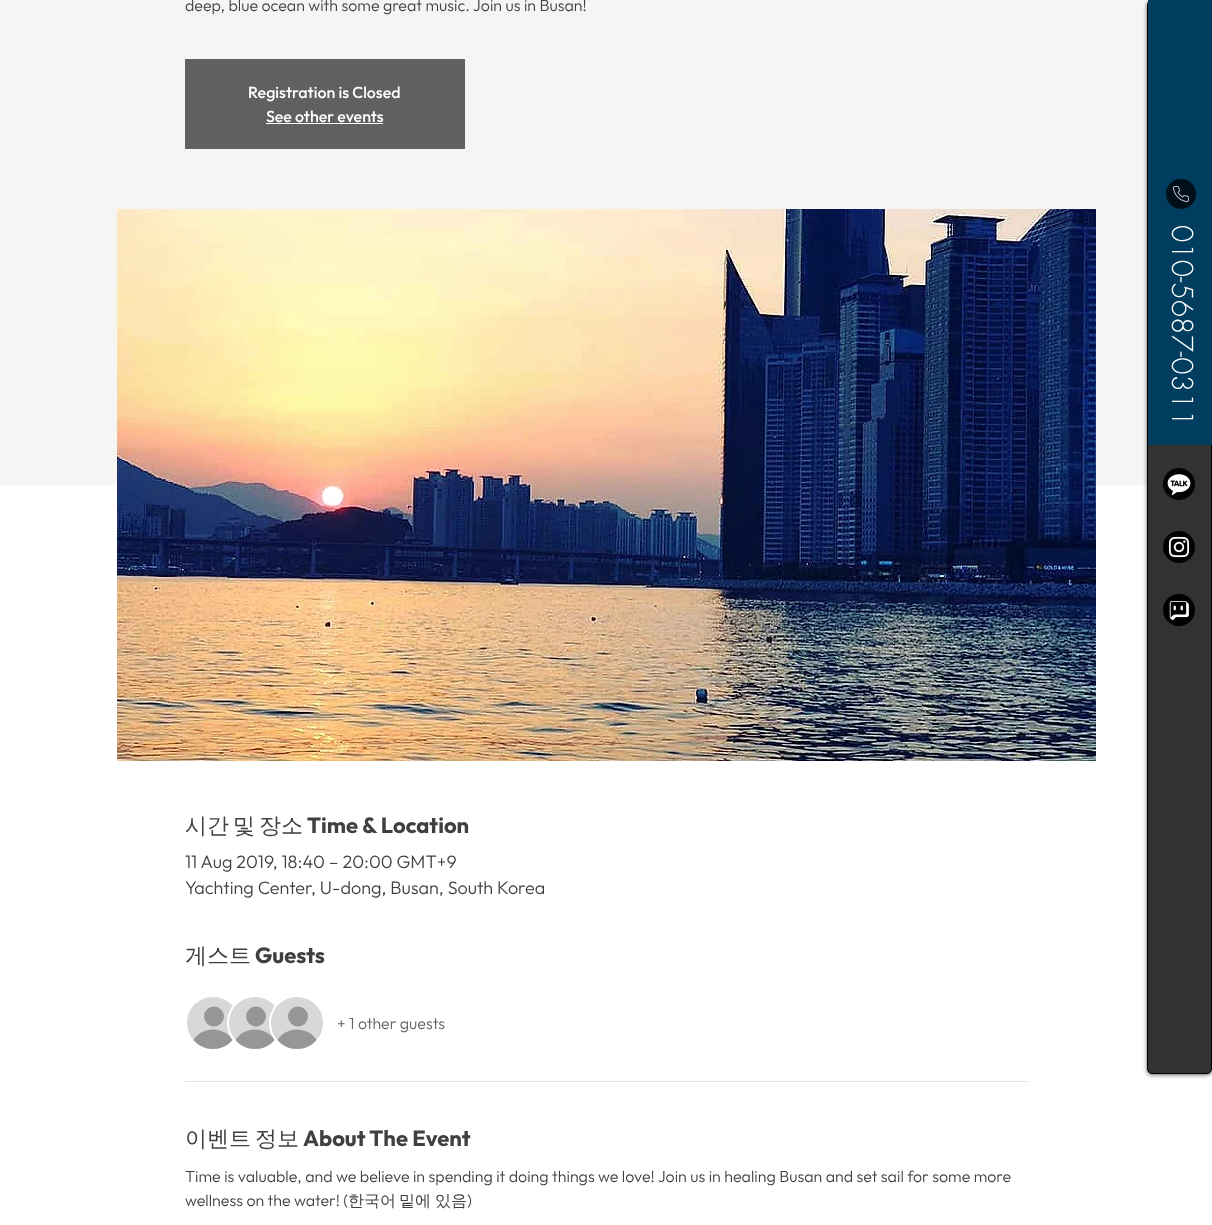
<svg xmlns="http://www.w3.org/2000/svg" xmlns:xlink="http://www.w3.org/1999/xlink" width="1212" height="1225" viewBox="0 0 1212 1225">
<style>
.cls-1{font:300 16px Outfit;fill:#404040}
.cls-2{font:500 16px Outfit;fill:#ffffff}
.cls-3{font:500 22px WenQuanYi Zen Hei;fill:#404040}
.cls-4{font:bold 22px Outfit;fill:#404040}
.cls-5{font:300 18px Outfit;fill:#404040}
.cls-6{font:300 16px Outfit;fill:#626364}
.cls-7{font:500 16px WenQuanYi Zen Hei;fill:#404040}
.cls-8{font:300 28px futura;fill:#ffffff}
</style>
<rect width="100%" height="100%" fill="#ffffff"/>
<rect fill="#f5f5f4" x="0" y="0" width="1148" height="485"/>
<rect fill="#5f6061" x="185" y="59" width="280" height="90"/>
<rect fill="#ffffff" x="266" y="123" width="117" height="1"/>
<image xlink:href="image0.png" x="117" y="209" width="979" height="552"/>
<circle fill="#d8d8d8" stroke="#ffffff" stroke-width="2" cx="213" cy="1023" r="27"/>
<circle fill="#969696" cx="214" cy="1016.5" r="10"/>
<path fill="#969696" d="M232.5 1040C222.5 1052 203.5 1052 193.5 1040C202 1026 224 1026 232.5 1040Z"/>
<circle fill="#d8d8d8" stroke="#ffffff" stroke-width="2" cx="255" cy="1023" r="27"/>
<circle fill="#969696" cx="256" cy="1016.5" r="10"/>
<path fill="#969696" d="M274.5 1040C264.5 1052 245.5 1052 235.5 1040C244 1026 266 1026 274.5 1040Z"/>
<circle fill="#d8d8d8" stroke="#ffffff" stroke-width="2" cx="297" cy="1023" r="27"/>
<circle fill="#969696" cx="298" cy="1016.5" r="10"/>
<path fill="#969696" d="M316.5 1040C306.5 1052 287.5 1052 277.5 1040C286 1026 308 1026 316.5 1040Z"/>
<rect fill="#e2e2e2" x="185" y="1081" width="843" height="1"/>
<rect fill="#000000" fill-opacity="0.6" filter="blur(2px)" x="1147" y="1" width="65" height="1074" rx="5"/>
<rect fill="#323232" stroke="#000000" x="1147.5" y="0.5" width="64" height="1073" rx="4.5"/>
<rect fill="#013d5f" x="1148" y="0" width="64" height="445"/>
<circle fill="#001019" cx="1181" cy="194" r="15"/>
<image xlink:href="image1.png" x="1173" y="186" width="16" height="16"/>
<image xlink:href="image2.png" x="1163" y="468" width="32" height="32"/>
<image xlink:href="image3.png" x="1163" y="531" width="32" height="32"/>
<image xlink:href="image4.png" x="1163" y="594" width="32" height="32"/>
<text class="cls-1" x="185" y="11">deep, blue ocean with some great music. Join us in Busan!</text>
<text class="cls-2" x="248" y="98">Registration is Closed</text>
<text class="cls-2" x="266" y="122">See other events</text>
<text class="cls-3" x="185" y="833">시간</text>
<text class="cls-3" x="233" y="833">및</text>
<text class="cls-3" x="259" y="833">장소</text>
<text class="cls-4" x="307" y="833">Time &amp; Location</text>
<text class="cls-5"><tspan x="185" y="868">11 Aug 2019, 18:40 – 20:00 GMT+9</tspan><tspan x="185" y="894">Yachting Center, U-dong, Busan, South Korea</tspan></text>
<text class="cls-3" x="185" y="963">게스트</text>
<text class="cls-4" x="255" y="963">Guests</text>
<text class="cls-6" x="337" y="1029">+ 1 other guests</text>
<text class="cls-3" x="185" y="1146">이벤트</text>
<text class="cls-3" x="255" y="1146">정보</text>
<text class="cls-4" x="303" y="1146">About The Event</text>
<text class="cls-1"><tspan x="185" y="1182">Time is valuable, and we believe in spending it doing things we love! Join us in healing Busan and set sail for some more</tspan><tspan x="185" y="1206">wellness on the water! (</tspan></text>
<text class="cls-7" x="348" y="1206">한국어</text>
<text class="cls-7" x="399" y="1206">밑에</text>
<text class="cls-7" x="435" y="1206">있음</text>
<text class="cls-1" x="467" y="1206">)</text>
<text class="cls-8" x="1172" y="225" transform="rotate(90 1172 225)">010-5687-0311</text>
</svg>
